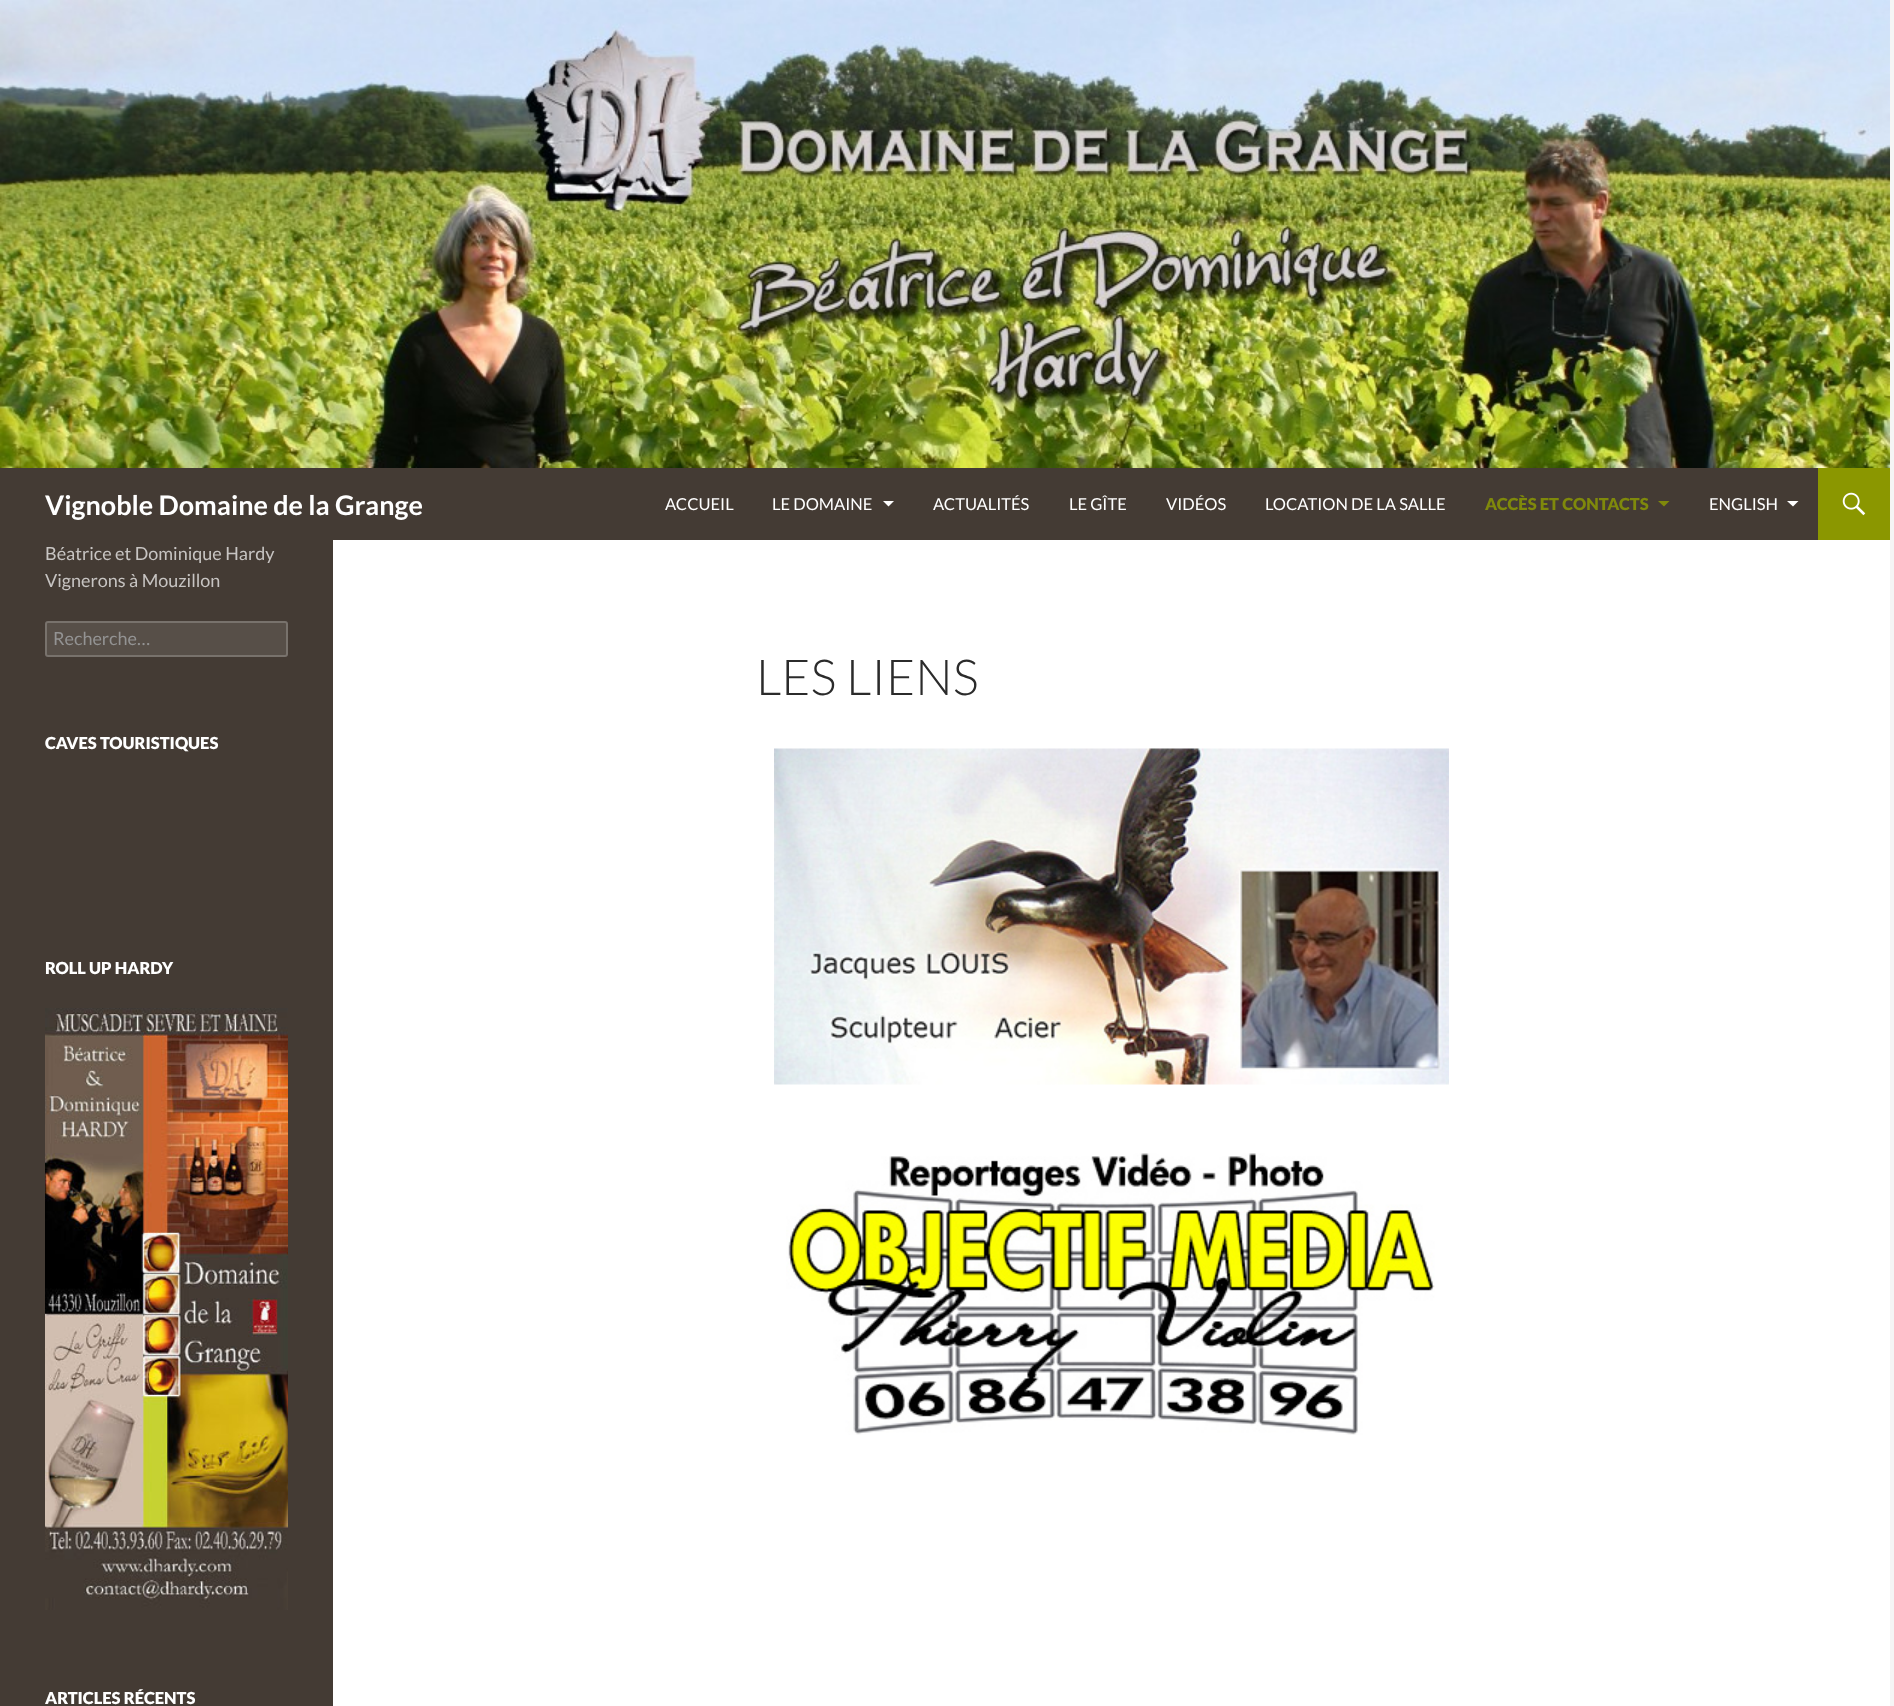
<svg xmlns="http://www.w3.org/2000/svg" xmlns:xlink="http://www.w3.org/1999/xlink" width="1894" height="1706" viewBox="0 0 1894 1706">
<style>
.cls-1{font:bold 27px Lato;fill:#ffffff}
.cls-2{font:16.5px Lato;fill:#ffffff}
.cls-3{font:900 16.5px Lato;fill:#7f890b}
.cls-4{font:18px Lato;fill:#c7c4c2}
.cls-5{font:18px Lato;fill:#939393}
.cls-6{font:900 16.5px Lato;fill:#ffffff}
.cls-7{font:300 49.5px Lato;fill:#2b2b2b}
</style>
<rect width="100%" height="100%" fill="#f5f5f5"/>
<rect fill="#ffffff" x="333" y="540" width="1557" height="1166"/>
<image xlink:href="image0.png" x="0" y="0" width="1890" height="468"/>
<rect fill="#443b34" x="0" y="468" width="1818" height="72"/>
<path fill="#ffffff" d="M883 501L888.5 506.5L894 501Z"/>
<path fill="#7f890b" d="M1658 501L1664 506.5L1669.5 501Z"/>
<path fill="#ffffff" d="M1787 501L1793 506.5L1798.5 501Z"/>
<rect fill="#8b9700" x="1818" y="468" width="72" height="72"/>
<image xlink:href="image1.png" x="1842" y="492" width="24" height="24"/>
<rect fill="#443b34" x="0" y="540" width="333" height="1166"/>
<rect fill="#574f48" x="45" y="621" width="243" height="36" rx="3"/>
<rect fill="none" stroke="#ffffff" stroke-opacity="0.2" stroke-width="2" x="46" y="622" width="241" height="34" rx="2"/>
<image xlink:href="image2.png" x="45" y="1008" width="243" height="602"/>
<image xlink:href="image3.png" x="774" y="748" width="675" height="337"/>
<image xlink:href="image4.png" x="786" y="1153" width="649" height="282"/>
<text class="cls-1" x="45" y="515">Vignoble Domaine de la Grange</text>
<text class="cls-2" x="665" y="510">ACCUEIL</text>
<text class="cls-2" x="772" y="510">LE DOMAINE</text>
<text class="cls-2" x="933" y="510">ACTUALITÉS</text>
<text class="cls-2" x="1069" y="510">LE GÎTE</text>
<text class="cls-2" x="1166" y="510">VIDÉOS</text>
<text class="cls-2" x="1265" y="510">LOCATION DE LA SALLE</text>
<text class="cls-3" x="1485" y="510">ACCÈS ET CONTACTS</text>
<text class="cls-2" x="1709" y="510">ENGLISH</text>
<text class="cls-4"><tspan x="45" y="560">Béatrice et Dominique Hardy</tspan><tspan x="45" y="587">Vignerons à Mouzillon</tspan></text>
<text class="cls-5" x="53" y="645">Recherche…</text>
<text class="cls-6" x="45" y="749">CAVES TOURISTIQUES</text>
<text class="cls-6" x="45" y="974">ROLL UP HARDY</text>
<text class="cls-6" x="45" y="1704">ARTICLES RÉCENTS</text>
<text class="cls-7" x="756" y="695">LES LIENS</text>
</svg>
